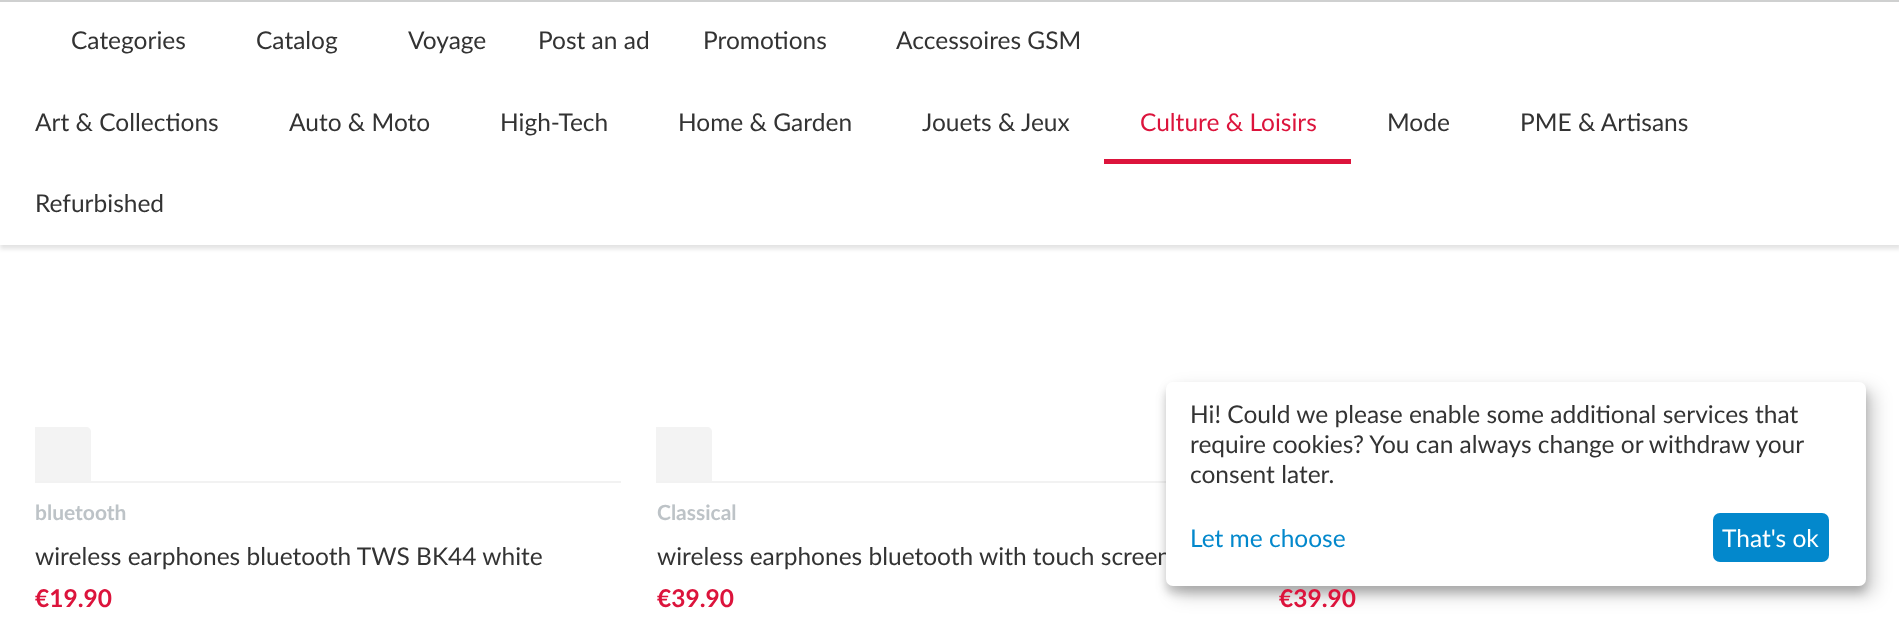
<svg xmlns="http://www.w3.org/2000/svg" xmlns:xlink="http://www.w3.org/1999/xlink" width="1899" height="620" viewBox="0 0 1899 620">
<style>
.cls-1{font:24.5px Lato;fill:#333333}
.cls-2{font:24.5px Lato;fill:#dc143c}
.cls-3{font:bold 21px Lato;fill:#bdc3c7}
.cls-4{font:bold 24.5px Lato;fill:#dc143c}
.cls-5{font:24.5px Lato;fill:#0388cc}
.cls-6{font:24.5px Lato;fill:#ffffff}
</style>
<rect width="100%" height="100%" fill="#ffffff"/>
<rect fill="#000000" fill-opacity="0.11" filter="blur(2px)" x="0" y="4" width="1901" height="245"/>
<rect fill="#ffffff" x="0" y="2" width="1899" height="243"/>
<rect fill="#cfd0d0" x="0" y="0" width="1899" height="2"/>
<rect fill="#dc143c" x="1104" y="159" width="247" height="5"/>
<rect fill="#f2f2f2" x="35" y="481" width="586" height="2"/>
<path fill="#f3f3f3" d="M35 427H86C89 427 91 429 91 432V481H35Z"/>
<path fill="#f2f2f2" d="M656 35V483H1244V481H656Z"/>
<path fill="#f3f3f3" d="M656 427H707C710 427 712 429 712 432V481H656Z"/>
<rect fill="#000000" fill-opacity="0.19" filter="blur(9px)" x="1174" y="390" width="700" height="205" rx="7"/>
<rect fill="#000000" fill-opacity="0.2" filter="blur(5px)" x="1166" y="389" width="700" height="204" rx="7"/>
<text class="cls-1" x="71" y="49">Categories</text>
<text class="cls-1" x="256" y="49">Catalog</text>
<text class="cls-1" x="408" y="49">Voyage</text>
<text class="cls-1" x="538" y="49">Post an ad</text>
<text class="cls-1" x="703" y="49">Promotions</text>
<text class="cls-1" x="896" y="49">Accessoires GSM</text>
<text class="cls-1" x="35" y="131">Art &amp; Collections</text>
<text class="cls-1" x="289" y="131">Auto &amp; Moto</text>
<text class="cls-1" x="500" y="131">High-Tech</text>
<text class="cls-1" x="678" y="131">Home &amp; Garden</text>
<text class="cls-1" x="922" y="131">Jouets &amp; Jeux</text>
<text class="cls-2" x="1140" y="131">Culture &amp; Loisirs</text>
<text class="cls-1" x="1387" y="131">Mode</text>
<text class="cls-1" x="1520" y="131">PME &amp; Artisans</text>
<text class="cls-1" x="35" y="212">Refurbished</text>
<text class="cls-3" x="35" y="520">bluetooth</text>
<text class="cls-1" x="35" y="565">wireless earphones bluetooth TWS BK44 white</text>
<text class="cls-4" x="35" y="607">€19.90</text>
<text class="cls-3" x="657" y="520">Classical</text>
<text class="cls-1" x="657" y="565">wireless earphones bluetooth with touch screen</text>
<text class="cls-4" x="657" y="607">€39.90</text>
<text class="cls-4" x="1279" y="607">€39.90</text>
<rect fill="#ffffff" x="1166" y="382" width="700" height="204" rx="7"/>
<text class="cls-1"><tspan x="1190" y="423">Hi! Could we please enable some additional services that</tspan><tspan x="1190" y="453">require cookies? You can always change or withdraw your</tspan><tspan x="1190" y="483">consent later.</tspan></text>
<text class="cls-5" x="1190" y="547">Let me choose</text>
<rect fill="#0388cc" x="1713" y="513" width="116" height="49" rx="7"/>
<text class="cls-6" x="1722" y="547">That's ok</text>
</svg>
